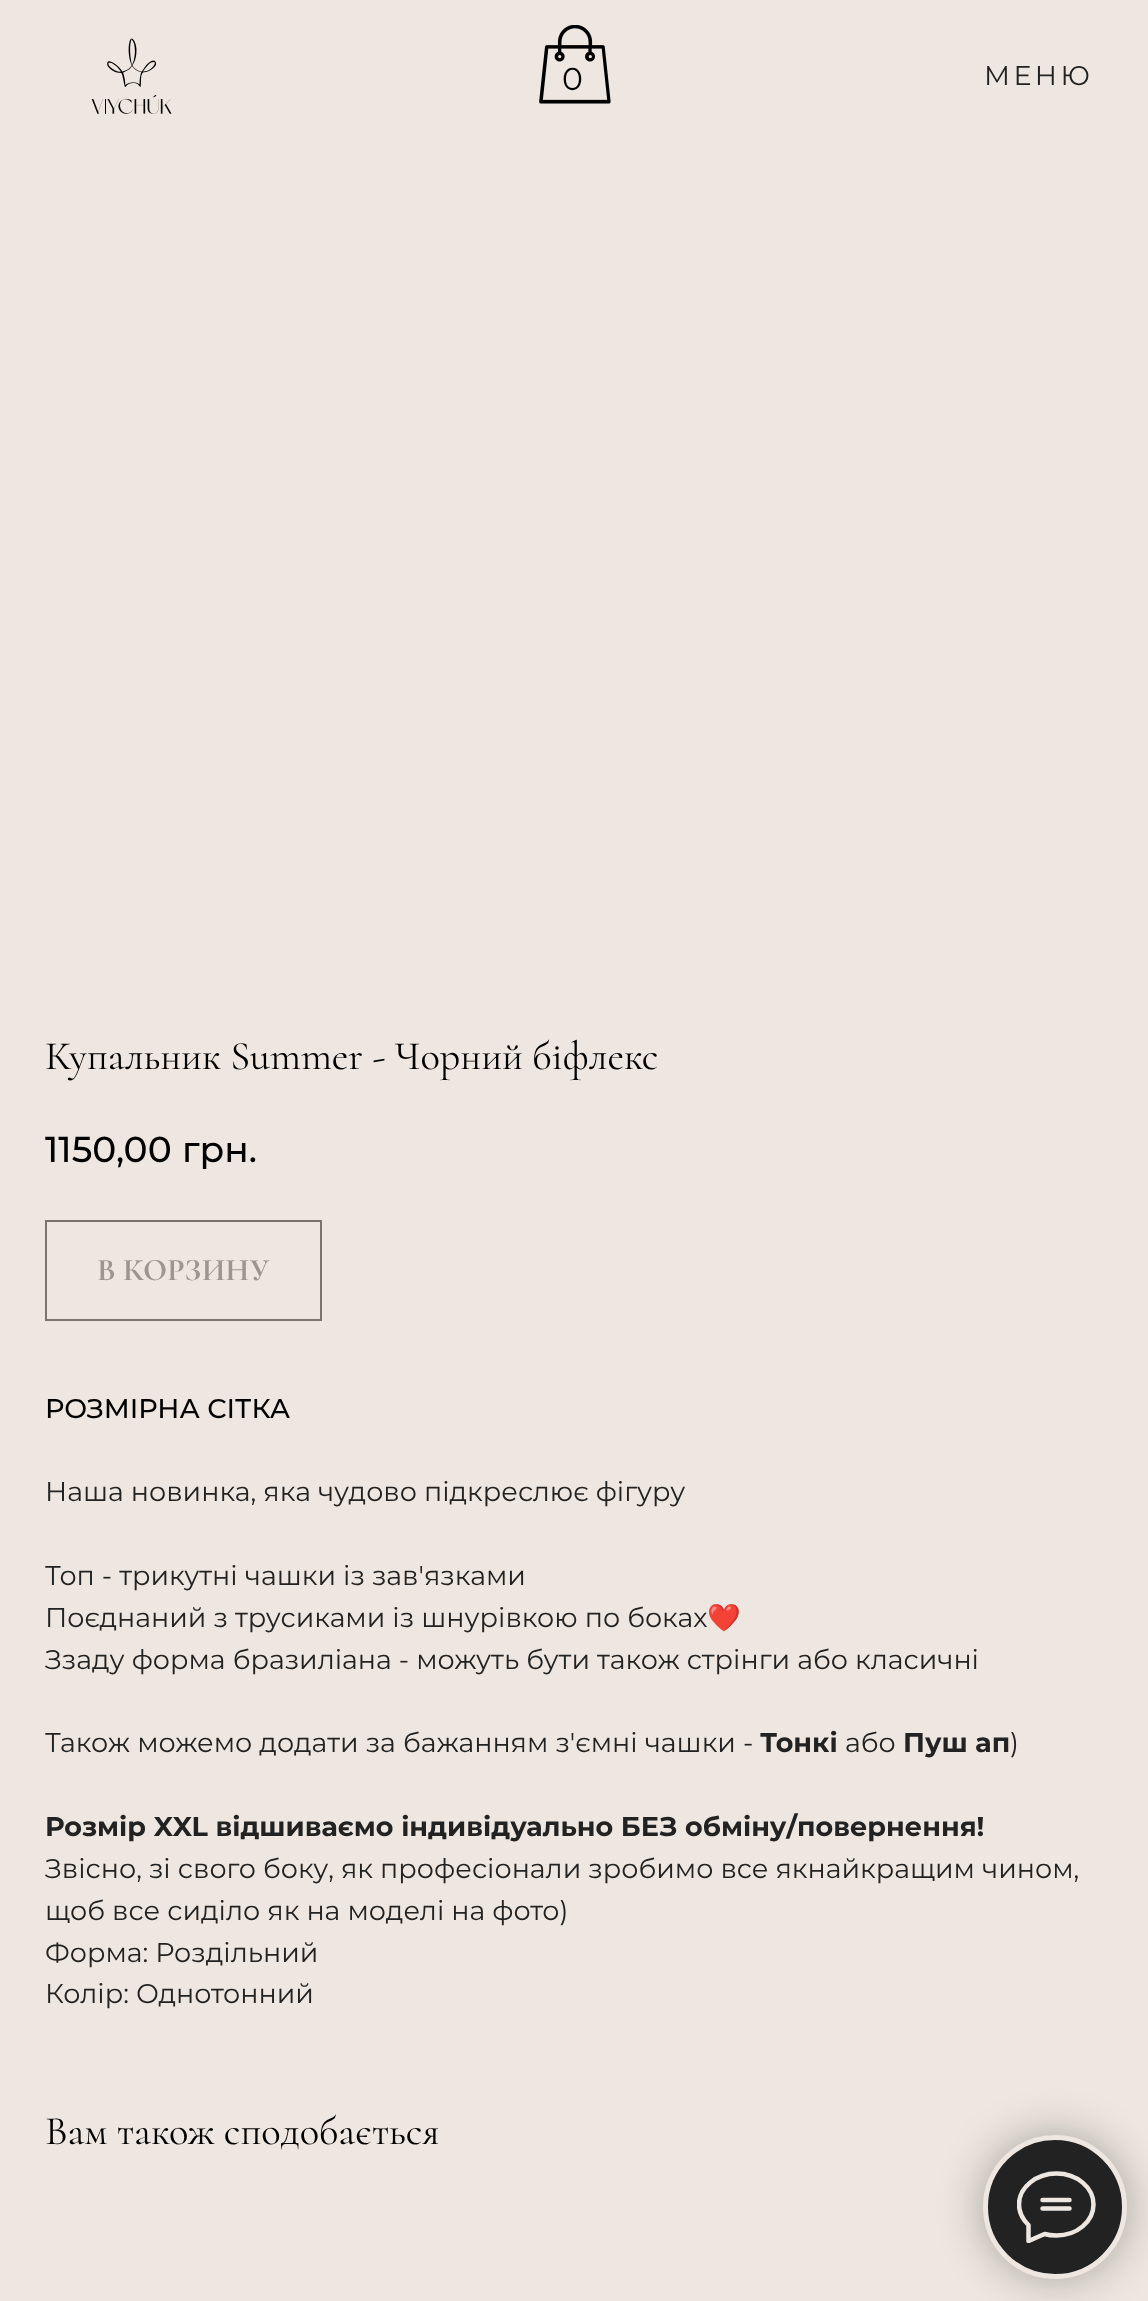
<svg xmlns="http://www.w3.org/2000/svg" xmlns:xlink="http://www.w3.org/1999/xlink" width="1148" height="2301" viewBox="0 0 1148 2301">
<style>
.cls-1{font:27px Montserrat;letter-spacing:3.5px;fill:#222222}
.cls-2{font:31.5px Montserrat;fill:#000000}
.cls-3{font:40.5px Cormorant;fill:#000000}
.cls-4{font:500 36px Montserrat;fill:#000000}
.cls-5{font:bold 31.5px Cormorant;fill:#9b9692}
.cls-6{font:500 27px Montserrat;fill:#000000}
.cls-7{font:27px Montserrat;fill:#222222}
.cls-8{font:27px Noto Color Emoji;fill:#222222}
.cls-9{font:bold 27px Montserrat;fill:#222222}
</style>
<defs>
<clipPath id="clip1"><rect x="1017" y="2171" width="79" height="72"/></clipPath>
</defs>
<rect width="100%" height="100%" fill="#eee7e1"/>
<image xlink:href="image0.png" x="91" y="38" width="81" height="76"/>
<image xlink:href="image1.png" x="539" y="25" width="72" height="79"/>
<rect fill="#000000" fill-opacity="0.3" filter="blur(22.5px)" x="983" y="2135" width="144" height="144" rx="72"/>
<circle fill="#222222" stroke="#eee7e1" stroke-width="5" cx="1055" cy="2207" r="69.5"/>
<g clip-path="url(#clip1)">
<path fill="none" stroke="#eee7e1" stroke-width="4.5" stroke-linecap="round" stroke-linejoin="round" d="M1042.5 2200H1069.5M1042.5 2208.5H1069.5M1028 2224.5C1022.5 2219 1019 2212 1019 2204.5C1019 2187.5 1036 2173.5 1056.5 2173.5C1077 2173.5 1093.5 2187.5 1093.5 2204.5C1093.5 2221.5 1077 2235.5 1056.5 2235.5C1052 2235.5 1048 2235 1044.5 2234L1028.5 2241V2225Z"/>
</g>
<rect fill="none" stroke="#777471" stroke-width="2" x="46" y="1221" width="275" height="99"/>
<text class="cls-1" x="984" y="85">МЕНЮ</text>
<text class="cls-2" x="562" y="90">0</text>
<text class="cls-3" x="45" y="1069">Купальник Summer - Чорний біфлекс</text>
<text class="cls-4" x="45" y="1162">1150,00</text>
<text class="cls-4" x="182" y="1162">грн.</text>
<text class="cls-5" x="97" y="1280">В КОРЗИНУ</text>
<text class="cls-6" x="45" y="1418">РОЗМІРНА СІТКА</text>
<text class="cls-7" x="45" y="1501">Наша новинка, яка чудово підкреслює фігуру</text>
<text class="cls-7"><tspan x="45" y="1585">Топ - трикутні чашки із зав'язками</tspan><tspan x="45" y="1627">Поєднаний з трусиками із шнурівкою по боках</tspan></text>
<text class="cls-8" x="707" y="1627">❤️</text>
<text class="cls-7" x="45" y="1669">Ззаду форма бразиліана - можуть бути також стрінги або класичні</text>
<text class="cls-7" x="45" y="1752">Також можемо додати за бажанням з'ємні чашки -</text>
<text class="cls-9" x="760" y="1752">Тонкі</text>
<text class="cls-7" x="845" y="1752">або</text>
<text class="cls-9" x="903" y="1752">Пуш ап</text>
<text class="cls-7" x="1010" y="1752">)</text>
<text class="cls-9" x="45" y="1836">Розмір XXL відшиваємо індивідуально БЕЗ обміну/повернення!</text>
<text class="cls-7"><tspan x="45" y="1878">Звісно, зі свого боку, як професіонали зробимо все якнайкращим чином,</tspan><tspan x="45" y="1920">щоб все сиділо як на моделі на фото)</tspan><tspan x="45" y="1962">Форма: Роздільний</tspan><tspan x="45" y="2003">Колір: Однотонний</tspan></text>
<text class="cls-3" x="45" y="2144">Вам також сподобається</text>
</svg>
